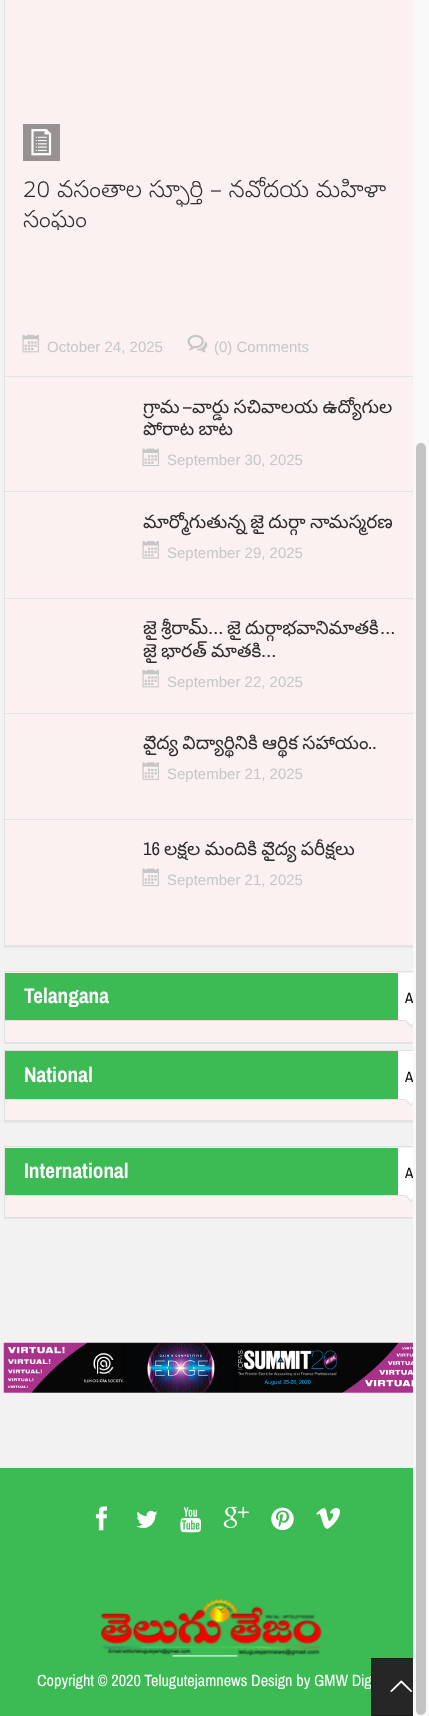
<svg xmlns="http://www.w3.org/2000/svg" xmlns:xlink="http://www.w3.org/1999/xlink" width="429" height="1716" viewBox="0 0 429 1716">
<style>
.cls-1{font:300 23.75px Noto Sans Telugu;fill:#2d2d2d}
.cls-2{font:15px Liberation Sans;fill:#c6c6c6}
.cls-3{font:18.75px Noto Sans Telugu;fill:#2d2d2d}
.cls-4{font:18.75px Archivo Narrow;fill:#2d2d2d}
.cls-5{font:bold 21.25px Archivo Narrow;fill:#ffffff}
.cls-6{font:15px Archivo Narrow;fill:#000000}
.cls-7{font:16.25px Archivo Narrow;fill:#ffffff}
</style>
<rect width="100%" height="100%" fill="#f2f2f2"/>
<rect fill="#e5e5e5" x="4" y="946" width="409" height="2"/>
<rect fill="#fbf1f1" x="5" y="0" width="408" height="945"/>
<rect fill="none" stroke="#e1e1e1" x="4.5" y="-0.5" width="421" height="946"/>
<rect fill="#e4e4e4" x="5" y="376" width="408" height="1"/>
<rect fill="#979191" x="23" y="124" width="37" height="37"/>
<image xlink:href="image0.png" x="31" y="129" width="21" height="27"/>
<image xlink:href="image1.png" x="22" y="334" width="17" height="19"/>
<image xlink:href="image2.png" x="187" y="334" width="21" height="19"/>
<rect fill="#e4e4e4" x="5" y="491" width="408" height="1"/>
<image xlink:href="image3.png" x="142" y="448" width="17" height="19"/>
<rect fill="#e4e4e4" x="5" y="598" width="408" height="1"/>
<image xlink:href="image4.png" x="142" y="541" width="17" height="18"/>
<rect fill="#e4e4e4" x="5" y="713" width="408" height="1"/>
<image xlink:href="image1.png" x="142" y="669" width="17" height="19"/>
<rect fill="#e4e4e4" x="5" y="819" width="408" height="1"/>
<image xlink:href="image5.png" x="142" y="762" width="17" height="18"/>
<image xlink:href="image3.png" x="142" y="868" width="17" height="19"/>
<rect fill="#e5e5e5" x="4" y="1043" width="409" height="1"/>
<rect fill="#fbf1f1" x="5" y="972" width="408" height="70"/>
<rect fill="none" stroke="#e1e1e1" x="4.5" y="971.5" width="421" height="71"/>
<rect fill="#3cba54" x="5" y="973" width="393" height="47"/>
<rect fill="#e1e1e1" x="5" y="1020" width="400" height="1"/>
<rect fill="#ffffff" x="398" y="973" width="15" height="47"/>
<path fill="#e5e5e5" d="M404 1020H419L411 1027.5Z"/>
<path fill="#ffffff" d="M406 1020H416L411 1025Z"/>
<rect fill="#e5e5e5" x="4" y="1121" width="409" height="2"/>
<rect fill="#fbf1f1" x="5" y="1100" width="408" height="20"/>
<rect fill="none" stroke="#e1e1e1" x="4.5" y="1050.5" width="421" height="70"/>
<rect fill="#3cba54" x="5" y="1051" width="393" height="48"/>
<rect fill="#e1e1e1" x="5" y="1099" width="400" height="1"/>
<rect fill="#ffffff" x="398" y="1051" width="15" height="48"/>
<path fill="#e5e5e5" d="M404 1099H419L411 1106Z"/>
<path fill="#ffffff" d="M406 1099H416L411 1104Z"/>
<rect fill="#e5e5e5" x="4" y="1218" width="409" height="1"/>
<rect fill="#fbf1f1" x="5" y="1147" width="408" height="70"/>
<rect fill="none" stroke="#e1e1e1" x="4.5" y="1146.5" width="421" height="71"/>
<rect fill="#3cba54" x="5" y="1148" width="393" height="47"/>
<rect fill="#e1e1e1" x="5" y="1195" width="400" height="1"/>
<rect fill="#ffffff" x="398" y="1148" width="15" height="47"/>
<path fill="#e5e5e5" d="M404 1195H419L411 1202.5Z"/>
<path fill="#ffffff" d="M406 1195H416L411 1200Z"/>
<image xlink:href="image6.png" x="3" y="1342" width="410" height="51"/>
<rect fill="#3cba54" x="0" y="1468" width="413" height="248"/>
<image xlink:href="image7.png" x="95" y="1506" width="13" height="25"/>
<image xlink:href="image8.png" x="136" y="1510" width="22" height="19"/>
<image xlink:href="image9.png" x="180" y="1507" width="22" height="26"/>
<image xlink:href="image10.png" x="223" y="1506" width="26" height="22"/>
<image xlink:href="image11.png" x="271" y="1507" width="23" height="24"/>
<image xlink:href="image12.png" x="316" y="1508" width="24" height="21"/>
<image xlink:href="image13.png" x="101" y="1599" width="221" height="58"/>
<rect fill="#262626" x="372" y="1659" width="41" height="56"/>
<text class="cls-1"><tspan x="23" y="197">20 వసంతాల స్ఫూర్తి – నవోదయ మహిళా</tspan><tspan x="23" y="227">సంఘం</tspan></text>
<text class="cls-2" x="47" y="352">October 24, 2025</text>
<text class="cls-2" x="214" y="352">(0) Comments</text>
<text class="cls-3" x="143" y="413">గ్రామ</text>
<text class="cls-4" x="183" y="413">–</text>
<text class="cls-3" x="192" y="413" word-spacing="-1">వార్డు సచివాలయ ఉద్యోగుల</text>
<text class="cls-3" x="143" y="435" word-spacing="-1">పోరాట బాట</text>
<text class="cls-2" x="167" y="465">September 30, 2025</text>
<text class="cls-3" x="143" y="528" word-spacing="-1">మార్మోగుతున్న జై దుర్గా నామస్మరణ</text>
<text class="cls-2" x="167" y="558">September 29, 2025</text>
<text class="cls-3" x="143" y="634" word-spacing="-1">జై శ్రీరామ్</text>
<text class="cls-4" x="208" y="634">…</text>
<text class="cls-3" x="227" y="634" word-spacing="-1">జై దుర్గాభవానిమాతకి</text>
<text class="cls-4" x="380" y="634">…</text>
<text class="cls-3" x="143" y="657" word-spacing="-1">జై భారత్ మాతకి</text>
<text class="cls-4" x="261" y="657">…</text>
<text class="cls-2" x="167" y="687">September 22, 2025</text>
<text class="cls-3" x="143" y="749" word-spacing="-1">వైద్య విద్యార్థినికి ఆర్థిక సహాయం</text>
<text class="cls-4" x="368" y="749">..</text>
<text class="cls-2" x="167" y="779">September 21, 2025</text>
<text class="cls-4" x="143" y="855">16</text>
<text class="cls-3" x="164" y="855" word-spacing="-1">లక్షల మందికి వైద్య పరీక్షలు</text>
<text class="cls-2" x="167" y="885">September 21, 2025</text>
<text class="cls-5" x="24" y="1003">Telangana</text>
<text class="cls-6" x="405" y="1003">A</text>
<text class="cls-5" x="24" y="1082">National</text>
<text class="cls-6" x="405" y="1082">A</text>
<text class="cls-5" x="24" y="1178">International</text>
<text class="cls-6" x="405" y="1178">A</text>
<text class="cls-7" x="37" y="1686">Copyright © 2020 Telugutejamnews Design by GMW Dig</text>
<rect fill="none" stroke="#1a1a1a" x="371.5" y="1658.5" width="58" height="57"/>
<image xlink:href="image14.png" x="390" y="1680" width="22" height="12"/>
<rect fill="#f9f9f9" x="413" y="0" width="16" height="1716"/>
<rect fill="#c3c3c3" x="416" y="443" width="10" height="1272" rx="5"/>
</svg>
